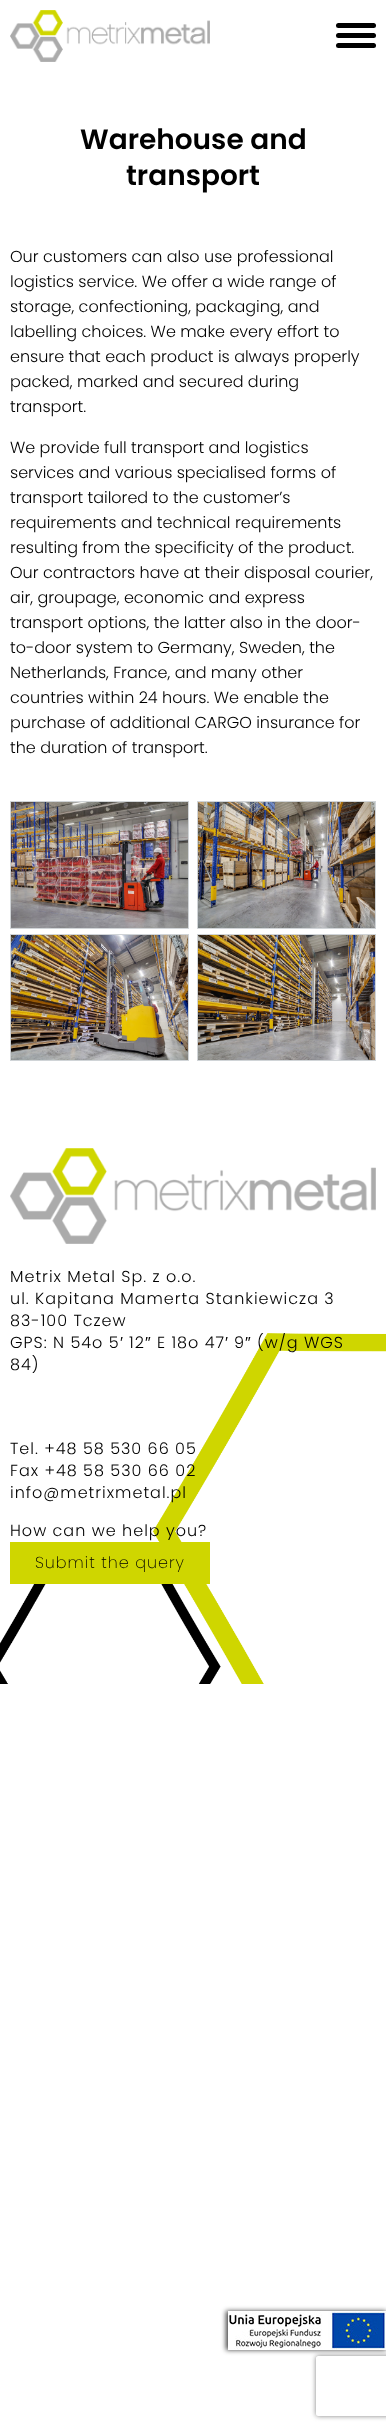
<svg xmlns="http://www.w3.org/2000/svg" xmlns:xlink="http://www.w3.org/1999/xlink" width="386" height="2430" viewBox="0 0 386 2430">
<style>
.cls-1{font:600 28px Poppins;fill:#000000}
.cls-2{font:300 16px Poppins;fill:#000000}
.cls-3{font:300 16px Poppins;letter-spacing:1px;fill:#000000}
.cls-4{font:16px Liberation Sans;letter-spacing:1px;fill:#000000}
.cls-5{font:200 16px Poppins;letter-spacing:1px;fill:#000000}
</style>
<defs>
<clipPath id="clip1"><path d="M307 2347H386V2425H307ZM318 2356H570C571 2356 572 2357 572 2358V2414C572 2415 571 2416 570 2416H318C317 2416 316 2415 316 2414V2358C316 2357 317 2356 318 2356Z" clip-rule="evenodd"/></clipPath>
</defs>
<rect width="100%" height="100%" fill="#ffffff"/>
<image xlink:href="image0.png" x="10" y="10" width="200" height="52"/>
<rect fill="#000000" x="336" y="23" width="40" height="5" rx="2.5"/>
<rect fill="#000000" x="336" y="33" width="40" height="5" rx="2.5"/>
<rect fill="#000000" x="336" y="43" width="40" height="5" rx="2.5"/>
<rect fill="none" stroke="#d0d4d7" x="10.5" y="801.5" width="178" height="127"/>
<image xlink:href="image1.png" x="11" y="802" width="177" height="126"/>
<rect fill="none" stroke="#d0d4d7" x="197.5" y="801.5" width="178" height="127"/>
<image xlink:href="image2.png" x="198" y="802" width="177" height="126"/>
<rect fill="none" stroke="#d0d4d7" x="10.5" y="934.5" width="178" height="126"/>
<image xlink:href="image3.png" x="11" y="935" width="177" height="125"/>
<rect fill="none" stroke="#d0d4d7" x="197.5" y="934.5" width="178" height="126"/>
<image xlink:href="image4.png" x="198" y="935" width="177" height="125"/>
<image xlink:href="image5.png" x="0" y="1333" width="386" height="351"/>
<image xlink:href="image6.png" x="10" y="1148" width="366" height="96"/>
<rect fill="#cfd600" x="10" y="1542" width="200" height="42"/>
<rect fill="#000000" fill-opacity="0.75" filter="blur(2.5px)" x="226" y="2311" width="160" height="39"/>
<g clip-path="url(#clip1)">
<rect fill="#808080" filter="blur(2.5px)" x="316" y="2356" width="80" height="60" rx="2"/>
</g>
<image xlink:href="image7.png" x="228" y="2311" width="158" height="39"/>
<text class="cls-1" x="80" y="149">Warehouse and</text>
<text class="cls-1" x="126" y="185">transport</text>
<text class="cls-2"><tspan x="10" y="262">Our customers can also use professional</tspan><tspan x="10" y="287">logistics service. We offer a wide range of</tspan><tspan x="10" y="312">storage, confectioning, packaging, and</tspan><tspan x="10" y="337">labelling choices. We make every effort to</tspan><tspan x="10" y="362">ensure that each product is always properly</tspan><tspan x="10" y="387">packed, marked and secured during</tspan><tspan x="10" y="412">transport.</tspan></text>
<text class="cls-2"><tspan x="10" y="453">We provide full transport and logistics</tspan><tspan x="10" y="478">services and various specialised forms of</tspan><tspan x="10" y="503">transport tailored to the customer’s</tspan><tspan x="10" y="528">requirements and technical requirements</tspan><tspan x="10" y="553">resulting from the specificity of the product.</tspan><tspan x="10" y="578">Our contractors have at their disposal courier,</tspan><tspan x="10" y="603">air, groupage, economic and express</tspan><tspan x="10" y="628">transport options, the latter also in the door-</tspan><tspan x="10" y="653">to-door system to Germany, Sweden, the</tspan><tspan x="10" y="678">Netherlands, France, and many other</tspan><tspan x="10" y="703">countries within 24 hours. We enable the</tspan><tspan x="10" y="728">purchase of additional CARGO insurance for</tspan><tspan x="10" y="753">the duration of transport.</tspan></text>
<text class="cls-3"><tspan x="10" y="1282">Metrix Metal Sp. z o.o.</tspan><tspan x="10" y="1304">ul. Kapitana Mamerta Stankiewicza 3</tspan><tspan x="10" y="1326">83-100 Tczew</tspan><tspan x="10" y="1348">GPS: N 54o 5</tspan></text>
<text class="cls-4" x="120" y="1348">′</text>
<text class="cls-3" x="129" y="1348">12</text>
<text class="cls-4" x="145" y="1348">″</text>
<text class="cls-3" x="157" y="1348">E 18o 47</text>
<text class="cls-4" x="225" y="1348">′</text>
<text class="cls-3" x="234" y="1348">9</text>
<text class="cls-4" x="245" y="1348">″</text>
<text class="cls-3" x="257" y="1348">(w/g WGS</text>
<text class="cls-3" x="10" y="1370">84)</text>
<text class="cls-3"><tspan x="10" y="1454">Tel. +48 58 530 66 05</tspan><tspan x="10" y="1476">Fax +48 58 530 66 02</tspan><tspan x="10" y="1498">info@metrixmetal.pl</tspan></text>
<text class="cls-3" x="10" y="1536">How can we help you?</text>
<text class="cls-5" x="35" y="1568">Submit the query</text>
</svg>
